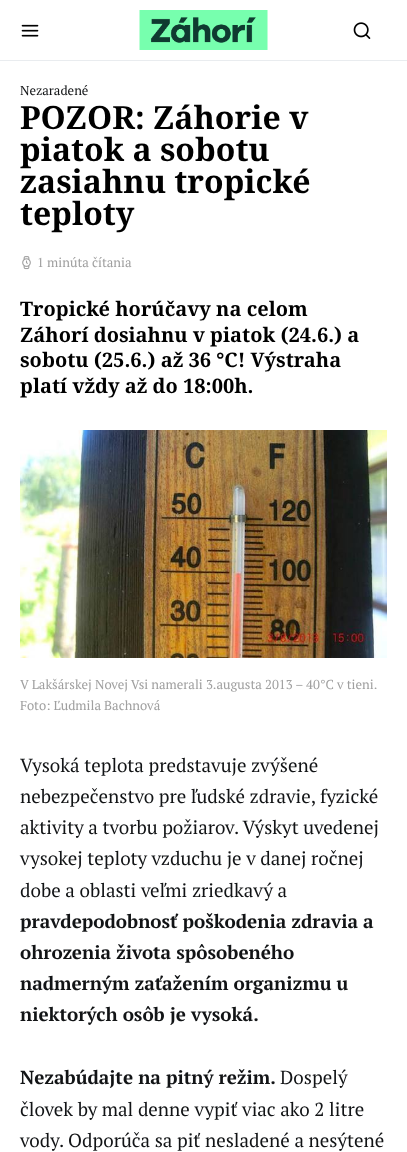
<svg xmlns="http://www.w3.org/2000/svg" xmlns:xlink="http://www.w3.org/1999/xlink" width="407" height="1152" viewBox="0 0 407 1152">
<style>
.cls-1{font:13px PT Serif;fill:#121416}
.cls-2{font:bold 32px Noto Serif;fill:#000000}
.cls-3{font:13px PT Serif;fill:#a0a0a0}
.cls-4{font:bold 20px Noto Serif;fill:#000000}
.cls-5{font:18.9px PT Serif;fill:#121416}
.cls-6{font:bold 18.9px PT Serif;fill:#121416}
</style>
<rect width="100%" height="100%" fill="#ffffff"/>
<rect fill="#e9ecef" x="0" y="60" width="407" height="1"/>
<image xlink:href="image0.png" x="21" y="24" width="18" height="13"/>
<image xlink:href="image1.png" x="139" y="10" width="129" height="40"/>
<image xlink:href="image2.png" x="353" y="22" width="18" height="17"/>
<image xlink:href="image3.png" x="22" y="256" width="9" height="14"/>
<image xlink:href="image4.png" x="20" y="430" width="367" height="228"/>
<text class="cls-1" x="20" y="95">Nezaradené</text>
<text class="cls-2"><tspan x="20" y="129">POZOR: Záhorie v</tspan><tspan x="20" y="161">piatok a sobotu</tspan><tspan x="20" y="193">zasiahnu tropické</tspan><tspan x="20" y="225">teploty</tspan></text>
<text class="cls-3" x="37" y="267">1 minúta čítania</text>
<text class="cls-4"><tspan x="20" y="316">Tropické horúčavy na celom</tspan><tspan x="20" y="342">Záhorí dosiahnu v piatok (24.6.) a</tspan><tspan x="20" y="367">sobotu (25.6.) až 36 °C! Výstraha</tspan><tspan x="20" y="393">platí vždy až do 18:00h.</tspan></text>
<text class="cls-3"><tspan x="20" y="689">V Lakšárskej Novej Vsi namerali 3.augusta 2013 – 40°C v tieni.</tspan><tspan x="20" y="710">Foto: Ľudmila Bachnová</tspan></text>
<text class="cls-5"><tspan x="20" y="772">Vysoká teplota predstavuje zvýšené</tspan><tspan x="20" y="803">nebezpečenstvo pre ľudské zdravie, fyzické</tspan><tspan x="20" y="834">aktivity a tvorbu požiarov. Výskyt uvedenej</tspan><tspan x="20" y="865">vysokej teploty vzduchu je v danej ročnej</tspan><tspan x="20" y="897">dobe a oblasti veľmi zriedkavý a</tspan></text>
<text class="cls-6"><tspan x="20" y="928">pravdepodobnosť poškodenia zdravia a</tspan><tspan x="20" y="959">ohrozenia života spôsobeného</tspan><tspan x="20" y="990">nadmerným zaťažením organizmu u</tspan><tspan x="20" y="1021">niektorých osôb je vysoká.</tspan></text>
<text class="cls-6" x="20" y="1084">Nezabúdajte na pitný režim.</text>
<text class="cls-5" x="280" y="1084">Dospelý</text>
<text class="cls-5"><tspan x="20" y="1116">človek by mal denne vypiť viac ako 2 litre</tspan><tspan x="20" y="1147">vody. Odporúča sa piť nesladené a nesýtené</tspan></text>
</svg>
